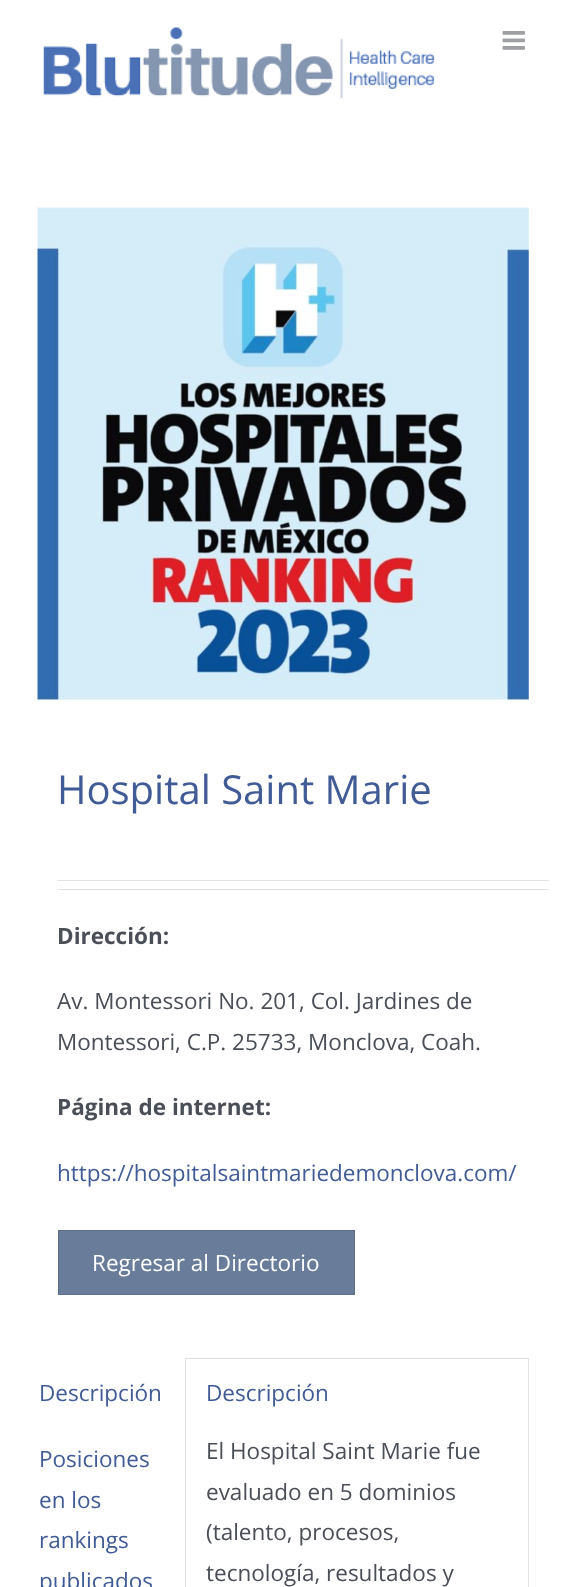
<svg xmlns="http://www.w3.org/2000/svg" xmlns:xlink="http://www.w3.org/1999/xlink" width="566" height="1587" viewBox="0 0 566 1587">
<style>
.cls-1{font:40px Open Sans;fill:#405b95}
.cls-2{font:bold 22.5px Open Sans;fill:#4a4e57}
.cls-3{font:22.5px Open Sans;fill:#4a4e57}
.cls-4{font:22.5px Open Sans;fill:#405b95}
.cls-5{font:22.5px Open Sans;fill:#ffffff}
</style>
<rect width="100%" height="100%" fill="#ffffff"/>
<image xlink:href="image0.png" x="43" y="27" width="392" height="72"/>
<image xlink:href="image1.png" x="502" y="31" width="23" height="19"/>
<image xlink:href="image2.png" x="37" y="207" width="492" height="493"/>
<rect fill="#e2e2e2" x="58" y="880" width="491" height="1"/>
<rect fill="#e2e2e2" x="58" y="889" width="491" height="1"/>
<rect fill="#697d9b" stroke="#5c6e88" x="58.5" y="1230.5" width="296" height="64"/>
<rect fill="none" stroke="#e2e2e2" x="185.5" y="1358.5" width="343" height="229"/>
<text class="cls-1" x="57" y="804">Hospital Saint Marie</text>
<text class="cls-2" x="57" y="944">Dirección:</text>
<text class="cls-3"><tspan x="57" y="1009">Av. Montessori No. 201, Col. Jardines de</tspan><tspan x="57" y="1050">Montessori, C.P. 25733, Monclova, Coah.</tspan></text>
<text class="cls-2" x="57" y="1115">Página de internet:</text>
<text class="cls-4" x="57" y="1181">https://hospitalsaintmariedemonclova.com/</text>
<text class="cls-5" x="92" y="1271">Regresar al Directorio</text>
<text class="cls-4" x="39" y="1401">Descripción</text>
<text class="cls-4"><tspan x="39" y="1467">Posiciones</tspan><tspan x="39" y="1508">en los</tspan><tspan x="39" y="1548">rankings</tspan><tspan x="39" y="1589">publicados</tspan></text>
<text class="cls-4" x="206" y="1401">Descripción</text>
<text class="cls-3"><tspan x="206" y="1459">El Hospital Saint Marie fue</tspan><tspan x="206" y="1500">evaluado en 5 dominios</tspan><tspan x="206" y="1540">(talento, procesos,</tspan><tspan x="206" y="1581">tecnología, resultados y</tspan></text>
</svg>
